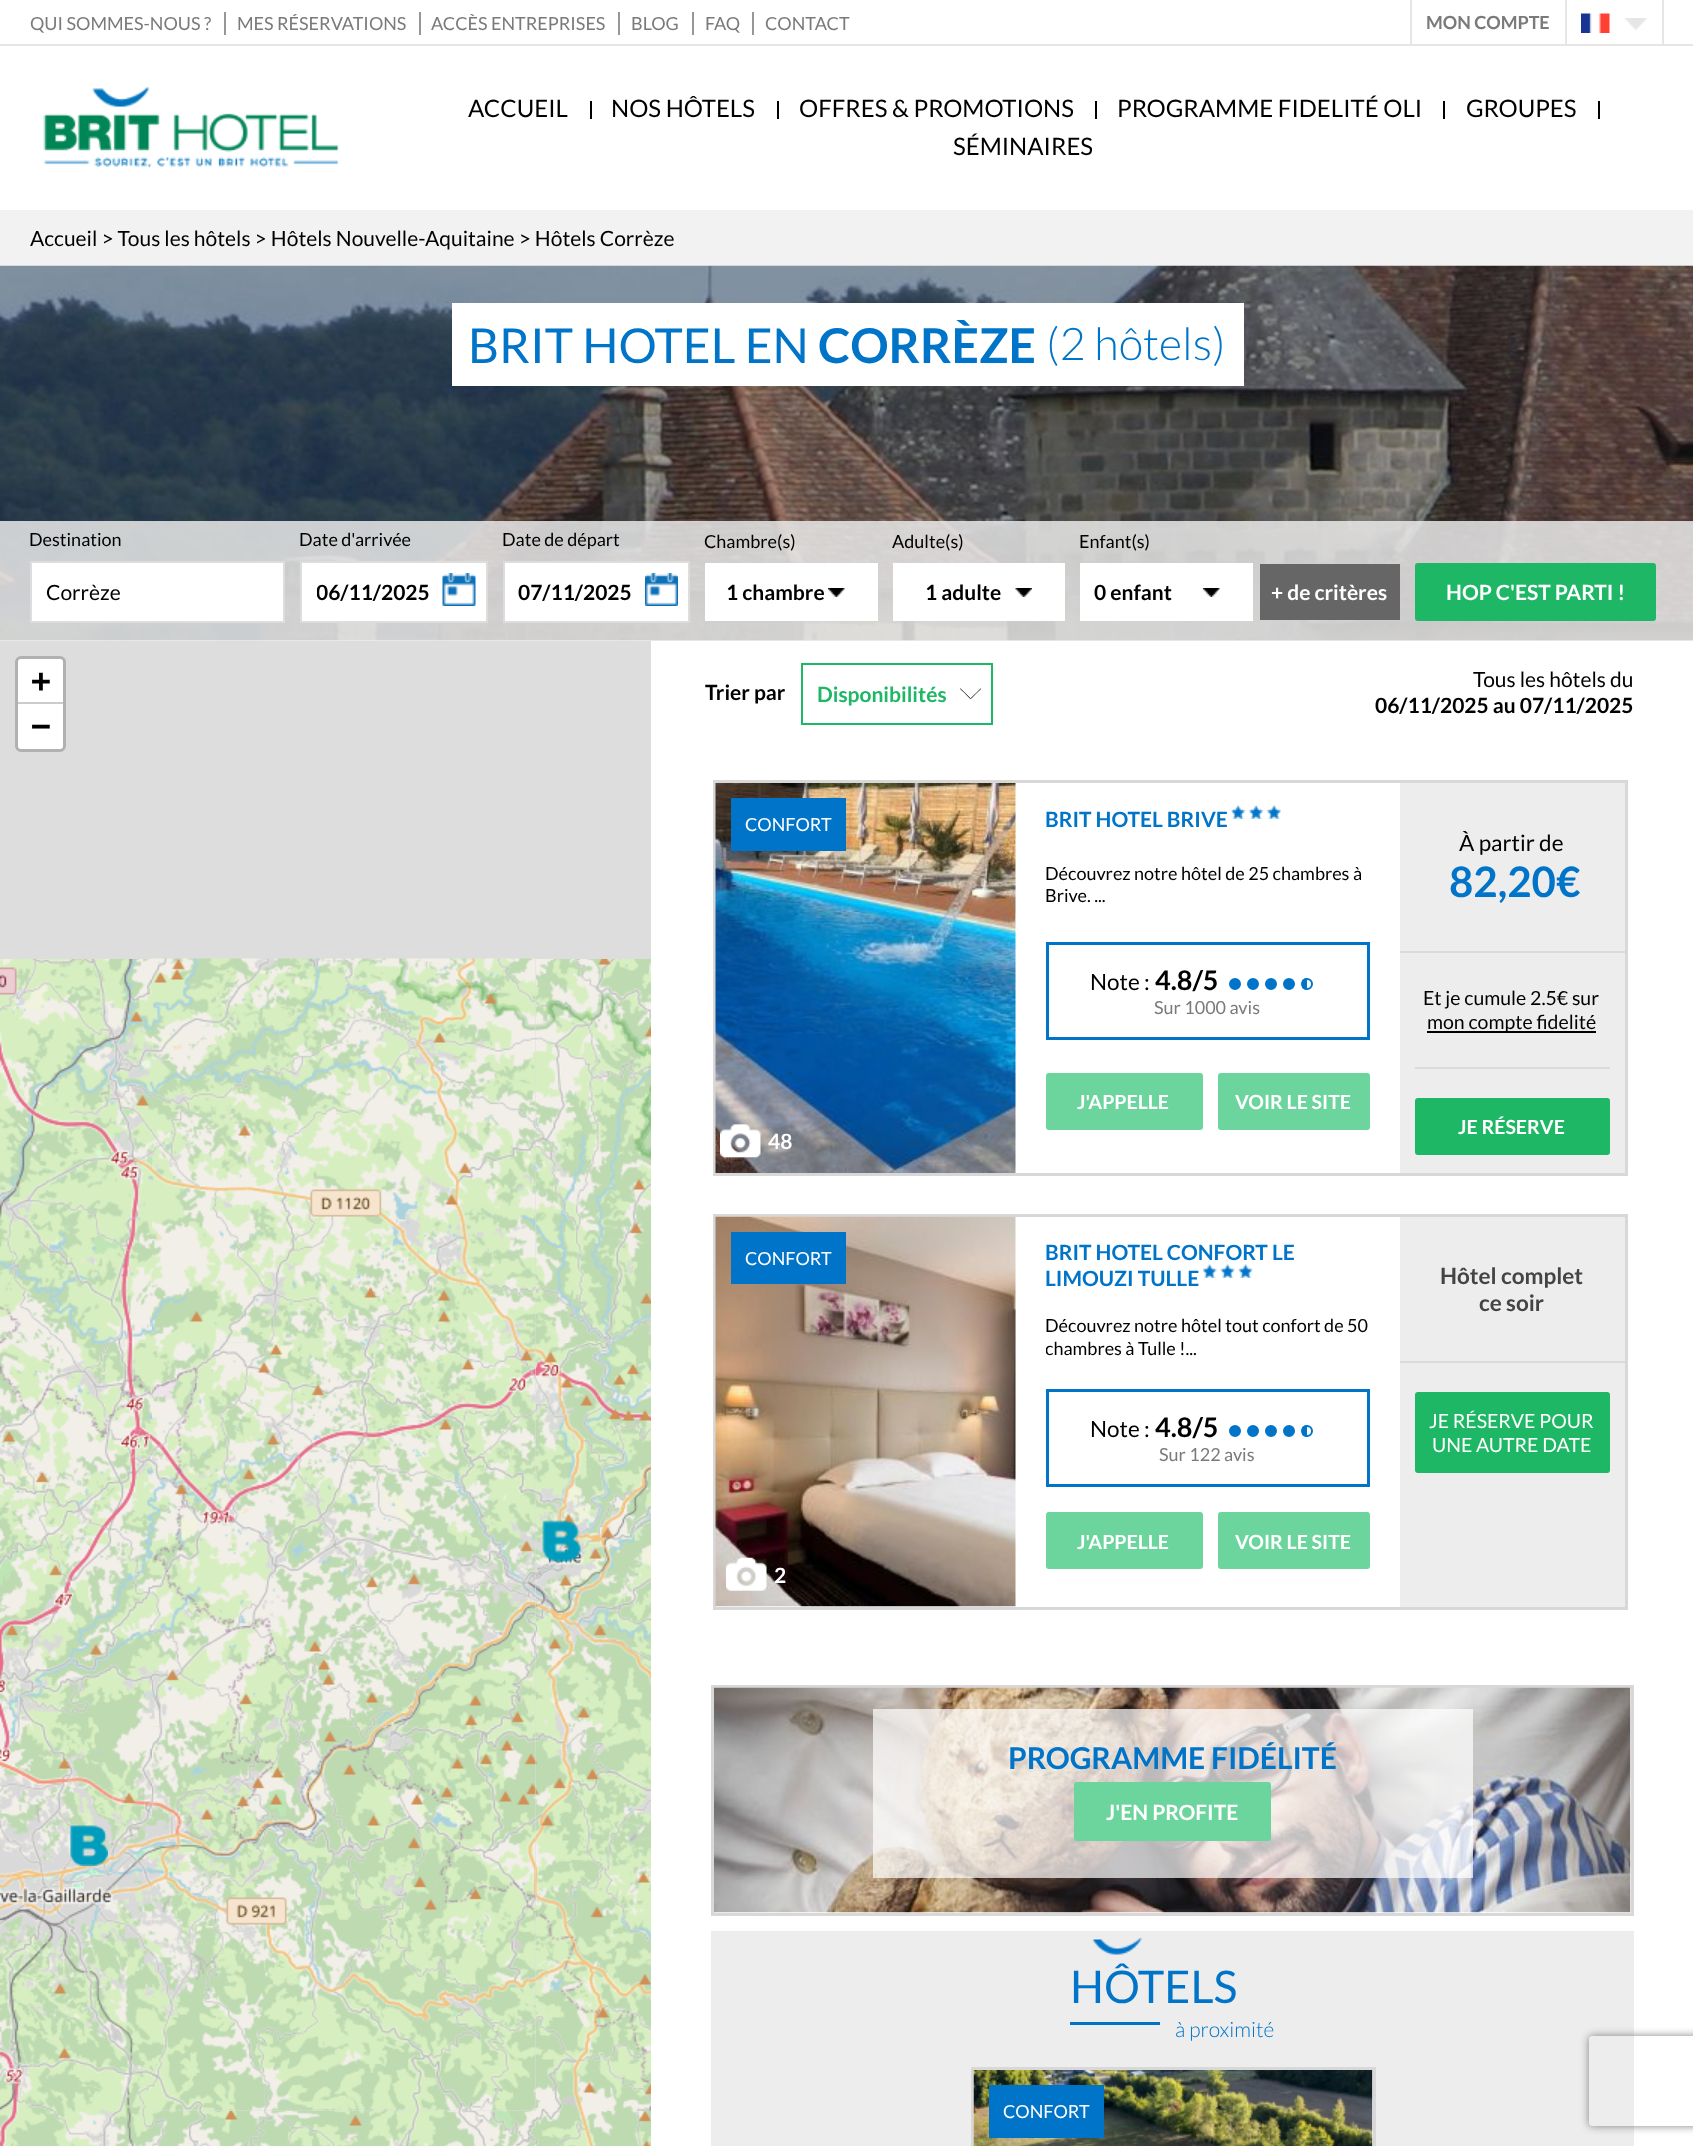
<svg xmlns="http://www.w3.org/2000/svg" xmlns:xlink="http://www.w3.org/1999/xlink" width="1693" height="2146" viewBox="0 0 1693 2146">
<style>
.cls-1{font:18px Lato;fill:#7a7a7a}
.cls-2{font:bold 18px Lato;fill:#7a7a7a}
.cls-3{font:24px Lato;fill:#000000}
.cls-4{font:21px Lato;fill:#000000}
.cls-5{font:48px Lato;fill:#0074c8}
.cls-6{font:bold 48px Lato;fill:#0074c8}
.cls-7{font:300 45px Lato;fill:#0074c8}
.cls-8{font:18px Lato;fill:#000000}
.cls-9{font:bold 21px Lato;fill:#000000}
.cls-10{font:bold 21px Lato;fill:#ffffff}
.cls-11{font:bold 33px DejaVu Sans Mono;fill:#000000}
.cls-12{font:bold 21px Lato;fill:#1db766}
.cls-13{font:18px Lato;fill:#ffffff}
.cls-14{font:bold 21px Lato;fill:#0074c8}
.cls-15{font:22.5px Lato;fill:#000000}
.cls-16{font:bold 27px Lato;fill:#000000}
.cls-17{font:bold 19.5px Lato;fill:#ffffff}
.cls-18{font:bold 42px Lato;fill:#0074c8}
.cls-19{font:19.5px Lato;fill:#000000}
.cls-20{font:bold 22.5px Lato;fill:#444444}
.cls-21{font:19.5px Lato;fill:#ffffff}
.cls-22{font:bold 30px Lato;fill:#0074c8}
.cls-23{font:45px Lato;fill:#0074c8}
.cls-24{font:300 21px Lato;fill:#0074c8}
</style>
<defs>
<clipPath id="clip1"><rect x="1301" y="978" width="12" height="12" rx="6"/></clipPath>
<clipPath id="clip2"><rect x="1301" y="1425" width="12" height="12" rx="6"/></clipPath>
<clipPath id="clip3"><path d="M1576 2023H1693V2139H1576ZM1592 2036H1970C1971.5 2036 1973 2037.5 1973 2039V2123C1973 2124.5 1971.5 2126 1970 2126H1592C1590.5 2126 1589 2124.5 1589 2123V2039C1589 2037.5 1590.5 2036 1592 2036Z" clip-rule="evenodd"/></clipPath>
<clipPath id="clip4"><rect x="317" y="579" width="154" height="26"/></clipPath>
<clipPath id="clip5"><rect x="1046" y="1314" width="324" height="45"/></clipPath>
</defs>
<rect width="100%" height="100%" fill="#ffffff"/>
<rect fill="#e6e6e6" x="0" y="44" width="1693" height="2"/>
<rect fill="#979797" x="224" y="12" width="2" height="23"/>
<rect fill="#979797" x="419" y="12" width="2" height="23"/>
<rect fill="#979797" x="618" y="12" width="2" height="23"/>
<rect fill="#979797" x="692" y="12" width="2" height="23"/>
<rect fill="#979797" x="752" y="12" width="2" height="23"/>
<rect fill="#e6e6e6" x="1565" y="0" width="2" height="45"/>
<rect fill="#e6e6e6" x="1410" y="0" width="2" height="45"/>
<rect fill="#e6e6e6" x="1662" y="0" width="2" height="45"/>
<image xlink:href="image0.png" x="1581" y="13" width="29" height="20"/>
<image xlink:href="image1.png" x="1624" y="18" width="23" height="12"/>
<image xlink:href="image2.png" x="43" y="86" width="296" height="82"/>
<rect fill="#000000" x="590" y="101" width="2" height="18"/>
<rect fill="#000000" x="777" y="101" width="2" height="18"/>
<rect fill="#000000" x="1095" y="101" width="2" height="18"/>
<rect fill="#000000" x="1443" y="101" width="2" height="18"/>
<rect fill="#000000" x="1598" y="101" width="2" height="18"/>
<rect fill="#f2f2f2" x="0" y="210" width="1693" height="56"/>
<image xlink:href="image3.png" x="0" y="265" width="1693" height="376"/>
<rect fill="#ffffff" x="452" y="303" width="792" height="83"/>
<rect fill="#eaeaea" fill-opacity="0.85" x="0" y="521" width="1693" height="120"/>
<rect fill="#ffffff" stroke="#dddddd" stroke-width="2" x="31" y="562" width="253" height="60"/>
<rect fill="#ffffff" stroke="#dddddd" stroke-width="2" x="301" y="562" width="186" height="60"/>
<image xlink:href="image4.png" x="442" y="573" width="34" height="33"/>
<rect fill="#ffffff" stroke="#dddddd" stroke-width="2" x="504" y="562" width="185" height="60"/>
<image xlink:href="image5.png" x="645" y="573" width="33" height="33"/>
<rect fill="#ffffff" x="705" y="563" width="173" height="58"/>
<image xlink:href="image6.png" x="828" y="588" width="17" height="9"/>
<rect fill="#ffffff" x="893" y="563" width="172" height="58"/>
<image xlink:href="image7.png" x="1015" y="588" width="17" height="9"/>
<rect fill="#ffffff" x="1080" y="563" width="173" height="58"/>
<image xlink:href="image8.png" x="1203" y="588" width="17" height="9"/>
<rect fill="#666666" x="1260" y="564" width="140" height="56"/>
<rect fill="#1db765" stroke="#1db765" stroke-width="2" x="1416" y="564" width="239" height="56" rx="2"/>
<rect fill="#dddddd" x="0" y="641" width="651" height="1470"/>
<rect fill="none" stroke="#b1b1b1" stroke-width="3" x="16.5" y="657.5" width="48" height="93" rx="4.5"/>
<path fill="#ffffff" d="M21 659H60C61.5 659 63 660.5 63 662V704H18V662C18 660.5 19.5 659 21 659Z"/>
<rect fill="#cccccc" x="18" y="702" width="45" height="2"/>
<path fill="#ffffff" d="M18 704H63V746C63 747.5 61.5 749 60 749H21C19.5 749 18 747.5 18 746Z"/>
<image xlink:href="image13.png" x="152" y="1342" width="384" height="385"/>
<image xlink:href="image10.png" x="151" y="958" width="385" height="385"/>
<image xlink:href="image9.png" x="0" y="959" width="152" height="384"/>
<image xlink:href="image11.png" x="536" y="959" width="115" height="384"/>
<image xlink:href="image12.png" x="0" y="1343" width="152" height="384"/>
<image xlink:href="image14.png" x="536" y="1343" width="115" height="384"/>
<image xlink:href="image15.png" x="0" y="1727" width="152" height="384"/>
<image xlink:href="image16.png" x="152" y="1726" width="384" height="385"/>
<image xlink:href="image17.png" x="536" y="1727" width="115" height="384"/>
<image xlink:href="image18.png" x="0" y="2111" width="152" height="35"/>
<image xlink:href="image19.png" x="152" y="2111" width="384" height="35"/>
<image xlink:href="image20.png" x="536" y="2111" width="115" height="35"/>
<image xlink:href="image21.png" x="542" y="1520" width="39" height="42"/>
<image xlink:href="image22.png" x="70" y="1825" width="38" height="41"/>
<rect fill="none" stroke="#1db766" stroke-width="2" x="802" y="664" width="190" height="60"/>
<image xlink:href="image23.png" x="960" y="688" width="21" height="11"/>
<rect fill="none" stroke="#d8d8d8" stroke-width="3" x="714.5" y="781.5" width="912" height="393"/>
<image xlink:href="image24.png" x="715" y="783" width="301" height="390"/>
<rect fill="#0074c8" x="731" y="798" width="115" height="53"/>
<image xlink:href="image25.png" x="720" y="1124" width="41" height="34"/>
<image xlink:href="image26.png" x="1231" y="805" width="50" height="14"/>
<rect fill="none" stroke="#0074c8" stroke-width="3" x="1047.5" y="943.5" width="321" height="95"/>
<circle fill="#0074c8" stroke="#0074c8" stroke-width="2" cx="1235" cy="984" r="5"/>
<circle fill="#0074c8" stroke="#0074c8" stroke-width="2" cx="1253" cy="984" r="5"/>
<circle fill="#0074c8" stroke="#0074c8" stroke-width="2" cx="1271" cy="984" r="5"/>
<circle fill="#0074c8" stroke="#0074c8" stroke-width="2" cx="1289" cy="984" r="5"/>
<g clip-path="url(#clip1)">
<rect fill="#0074c8" x="1302" y="978" width="5" height="12"/>
</g>
<circle fill="none" stroke="#0074c8" stroke-width="2" cx="1307" cy="984" r="5"/>
<rect fill="#6cd59e" stroke="#6cd59e" stroke-width="2" x="1047" y="1074" width="155" height="55" rx="2"/>
<rect fill="#6cd59e" stroke="#6cd59e" stroke-width="2" x="1219" y="1074" width="150" height="55" rx="2"/>
<rect fill="#ededed" x="1400" y="783" width="225" height="390"/>
<rect fill="#dadada" x="1400" y="951" width="225" height="2"/>
<rect fill="#dadada" x="1415" y="1067" width="195" height="2"/>
<rect fill="#000000" x="1427" y="1031" width="169" height="2"/>
<rect fill="#1db765" stroke="#1db765" stroke-width="2" x="1416" y="1099" width="193" height="55" rx="2"/>
<rect fill="none" stroke="#d8d8d8" stroke-width="3" x="714.5" y="1215.5" width="912" height="393"/>
<image xlink:href="image27.png" x="715" y="1216" width="301" height="391"/>
<rect fill="#0074c8" x="731" y="1232" width="115" height="52"/>
<image xlink:href="image28.png" x="726" y="1557" width="41" height="34"/>
<image xlink:href="image29.png" x="1203" y="1264" width="50" height="14"/>
<rect fill="none" stroke="#0074c8" stroke-width="3" x="1047.5" y="1390.5" width="321" height="95"/>
<circle fill="#0074c8" stroke="#0074c8" stroke-width="2" cx="1235" cy="1431" r="5"/>
<circle fill="#0074c8" stroke="#0074c8" stroke-width="2" cx="1253" cy="1431" r="5"/>
<circle fill="#0074c8" stroke="#0074c8" stroke-width="2" cx="1271" cy="1431" r="5"/>
<circle fill="#0074c8" stroke="#0074c8" stroke-width="2" cx="1289" cy="1431" r="5"/>
<g clip-path="url(#clip2)">
<rect fill="#0074c8" x="1302" y="1425" width="5" height="12"/>
</g>
<circle fill="none" stroke="#0074c8" stroke-width="2" cx="1307" cy="1431" r="5"/>
<rect fill="#6cd59e" stroke="#6cd59e" stroke-width="2" x="1047" y="1513" width="155" height="55" rx="2"/>
<rect fill="#6cd59e" stroke="#6cd59e" stroke-width="2" x="1219" y="1513" width="150" height="55" rx="2"/>
<rect fill="#ededed" x="1400" y="1217" width="225" height="390"/>
<rect fill="#dadada" x="1400" y="1361" width="225" height="2"/>
<rect fill="#1db765" stroke="#1db765" stroke-width="2" x="1416" y="1393" width="193" height="79" rx="2"/>
<rect fill="none" stroke="#d8d8d8" stroke-width="3" x="712.5" y="1686.5" width="920" height="228"/>
<image xlink:href="image30.png" x="714" y="1687" width="917" height="226"/>
<rect fill="#ffffff" fill-opacity="0.7" x="873" y="1709" width="600" height="169"/>
<rect fill="#6cd59e" stroke="#6cd59e" stroke-width="2" x="1075" y="1783" width="195" height="57" rx="2"/>
<rect fill="#ededed" x="711" y="1931" width="923" height="215"/>
<image xlink:href="image31.png" x="1092" y="1938" width="50" height="17"/>
<rect fill="#0073c7" x="1070" y="2022" width="90" height="3"/>
<rect fill="#ffffff" x="1372" y="2070" width="1" height="76"/>
<rect fill="none" stroke="#d8d8d8" stroke-width="3" x="972.5" y="2068.5" width="402" height="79"/>
<image xlink:href="image32.png" x="973" y="2070" width="400" height="76"/>
<rect fill="#0074c8" x="989" y="2085" width="115" height="53"/>
<g clip-path="url(#clip3)">
<rect fill="#808080" filter="blur(4px)" x="1589" y="2036" width="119" height="90" rx="3"/>
</g>
<text class="cls-1" x="30" y="30">QUI SOMMES-NOUS ?</text>
<text class="cls-1" x="237" y="30">MES RÉSERVATIONS</text>
<text class="cls-1" x="431" y="30">ACCÈS ENTREPRISES</text>
<text class="cls-1" x="631" y="30">BLOG</text>
<text class="cls-1" x="705" y="30">FAQ</text>
<text class="cls-1" x="765" y="30">CONTACT</text>
<text class="cls-2" x="1426" y="29">MON COMPTE</text>
<text class="cls-3" x="468" y="117">ACCUEIL</text>
<text class="cls-3" x="611" y="117">NOS HÔTELS</text>
<text class="cls-3" x="799" y="117">OFFRES &amp; PROMOTIONS</text>
<text class="cls-3" x="1117" y="117">PROGRAMME FIDELITÉ OLI</text>
<text class="cls-3" x="1466" y="117">GROUPES</text>
<text class="cls-3" x="953" y="155">SÉMINAIRES</text>
<text class="cls-4" x="30" y="246">Accueil &gt; Tous les hôtels &gt; Hôtels Nouvelle-Aquitaine &gt; Hôtels Corrèze</text>
<text class="cls-5" x="468" y="363">BRIT HOTEL EN</text>
<text class="cls-6" x="818" y="363">CORRÈZE</text>
<text class="cls-7" x="1046" y="360">(2 hôtels)</text>
<text class="cls-8" x="29" y="546">Destination</text>
<text class="cls-4" x="46" y="600">Corrèze</text>
<text class="cls-8" x="299" y="546">Date d'arrivée</text>
<g clip-path="url(#clip4)">
<text class="cls-9" x="316" y="600">06/11/2025</text>
</g>
<text class="cls-8" x="502" y="546">Date de départ</text>
<text class="cls-9" x="518" y="600">07/11/2025</text>
<text class="cls-8" x="704" y="548">Chambre(s)</text>
<text class="cls-9" x="726" y="600">1 chambre</text>
<text class="cls-8" x="892" y="548">Adulte(s)</text>
<text class="cls-9" x="925" y="600">1 adulte</text>
<text class="cls-8" x="1079" y="548">Enfant(s)</text>
<text class="cls-9" x="1094" y="600">0 enfant</text>
<text class="cls-10" x="1271" y="600">+ de critères</text>
<text class="cls-10" x="1446" y="600">HOP C'EST PARTI !</text>
<text class="cls-11"><tspan x="31" y="692">+</tspan><tspan x="31" y="737">−</tspan></text>
<text class="cls-9" x="705" y="700">Trier par</text>
<text class="cls-12" x="817" y="702">Disponibilités</text>
<text class="cls-4" x="1473" y="687">Tous les hôtels du</text>
<text class="cls-9" x="1375" y="713">06/11/2025 au 07/11/2025</text>
<text class="cls-13" x="745" y="831">CONFORT</text>
<text class="cls-10" x="768" y="1149">48</text>
<text class="cls-14" x="1045" y="827">BRIT HOTEL BRIVE</text>
<text class="cls-8"><tspan x="1045" y="880">Découvrez notre hôtel de 25 chambres à</tspan><tspan x="1045" y="902">Brive. ...</tspan></text>
<text class="cls-15" x="1090" y="990">Note :</text>
<text class="cls-16" x="1155" y="990">4.8/5</text>
<text class="cls-1" x="1154" y="1014">Sur 1000 avis</text>
<text class="cls-17" x="1077" y="1109">J'APPELLE</text>
<text class="cls-17" x="1235" y="1109">VOIR LE SITE</text>
<text class="cls-15" x="1459" y="851">À partir de</text>
<text class="cls-18" x="1449" y="897">82,20€</text>
<text class="cls-19" x="1423" y="1005">Et je cumule 2.5€ sur</text>
<text class="cls-19" x="1427" y="1029">mon compte fidelité</text>
<text class="cls-17" x="1458" y="1134">JE RÉSERVE</text>
<text class="cls-13" x="745" y="1265">CONFORT</text>
<text class="cls-10" x="774" y="1583">2</text>
<text class="cls-14"><tspan x="1045" y="1260">BRIT HOTEL CONFORT LE</tspan><tspan x="1045" y="1286">LIMOUZI TULLE</tspan></text>
<text class="cls-8" x="1045" y="1332">Découvrez notre hôtel tout confort de 50</text>
<g clip-path="url(#clip5)">
<text class="cls-8" x="1045" y="1355">chambres à Tulle !...</text>
</g>
<text class="cls-15" x="1090" y="1437">Note :</text>
<text class="cls-16" x="1155" y="1437">4.8/5</text>
<text class="cls-1" x="1159" y="1461">Sur 122 avis</text>
<text class="cls-17" x="1077" y="1549">J'APPELLE</text>
<text class="cls-17" x="1235" y="1549">VOIR LE SITE</text>
<text class="cls-20" x="1440" y="1284">Hôtel complet</text>
<text class="cls-20" x="1479" y="1311">ce soir</text>
<text class="cls-21" x="1429" y="1428">JE RÉSERVE POUR</text>
<text class="cls-21" x="1432" y="1452">UNE AUTRE DATE</text>
<text class="cls-22" x="1008" y="1769">PROGRAMME FIDÉLITÉ</text>
<text class="cls-10" x="1106" y="1820">J'EN PROFITE</text>
<text class="cls-23" x="1070" y="2003">HÔTELS</text>
<text class="cls-24" x="1175" y="2037">à proximité</text>
<text class="cls-13" x="1003" y="2118">CONFORT</text>
</svg>
